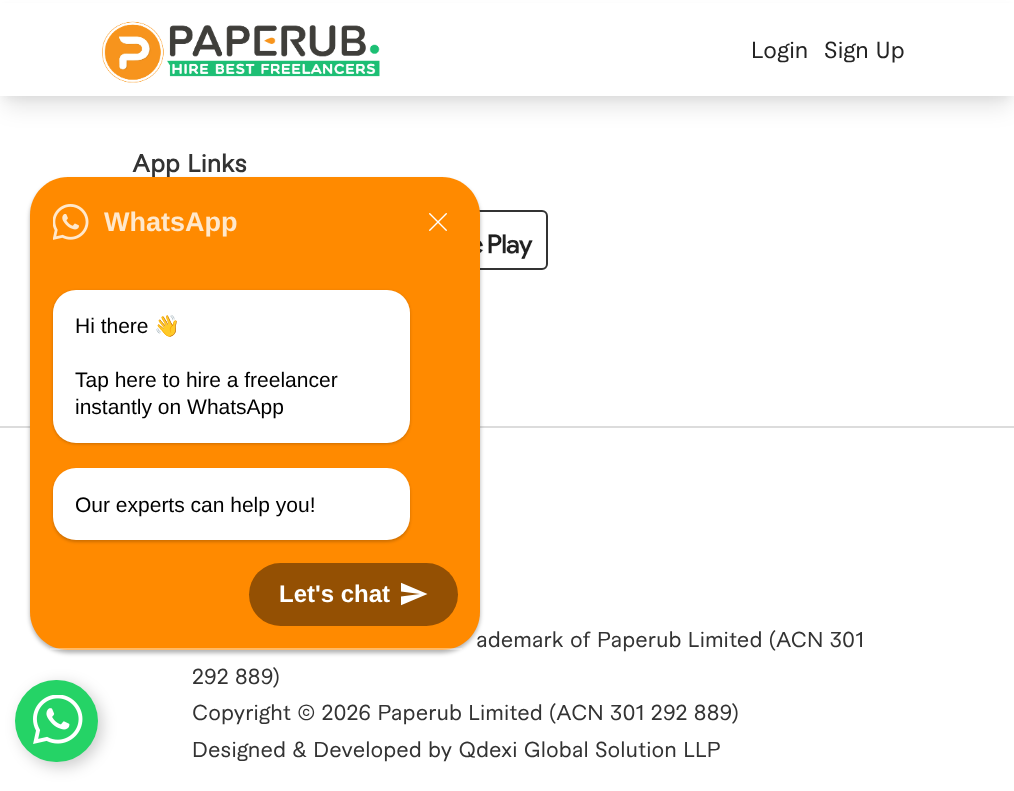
<svg xmlns="http://www.w3.org/2000/svg" xmlns:xlink="http://www.w3.org/1999/xlink" width="1014" height="791" viewBox="0 0 1014 791">
<style>
.cls-1{font:22.5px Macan;fill:#242424}
.cls-2{font:bold 24px Macan;fill:#333333}
.cls-3{font:bold 27px Liberation Sans;fill:#ffe8cc}
.cls-4{font:21px Macan;fill:#333333}
.cls-5{font:bold 24px Liberation Sans;fill:#ffffff}
.cls-6{font:21px Liberation Sans;fill:#000000}
.cls-7{font:21px Noto Color Emoji;fill:#000000}
</style>
<defs>
<clipPath id="clip1"><rect x="401" y="581" width="27" height="27"/></clipPath>
</defs>
<rect width="100%" height="100%" fill="#ffffff"/>
<rect fill="#000000" fill-opacity="0.05" filter="blur(4.5px)" x="3" y="9" width="1008" height="90"/>
<rect fill="#000000" fill-opacity="0.1" filter="blur(11px)" x="5" y="20" width="1005" height="87"/>
<rect fill="#ffffff" x="0" y="3" width="1014" height="93"/>
<image xlink:href="image0.png" x="102" y="21" width="278" height="62"/>
<rect fill="none" stroke="#333333" stroke-width="2" x="345" y="211" width="202" height="58" rx="5"/>
<image xlink:href="image1.png" x="480" y="234" width="53" height="25"/>
<rect fill="#dcdcdc" x="0" y="426" width="1014" height="2"/>
<rect fill="#000000" fill-opacity="0.3" filter="blur(2px)" x="30" y="180" width="450" height="473" rx="38"/>
<path fill="#ff8a00" d="M68 177H442C463 177 480 194 480 215V267H30V215C30 194 47 177 68 177Z"/>
<image xlink:href="image2.png" x="53" y="204" width="36" height="36"/>
<image xlink:href="image3.png" x="429" y="213" width="18" height="18"/>
<rect fill="#000000" fill-opacity="0.2" filter="blur(7.5px)" x="20" y="684" width="82" height="83" rx="41"/>
<rect fill="#25d366" x="15" y="680" width="83" height="82" rx="41"/>
<image xlink:href="image4.png" x="33" y="695" width="50" height="49"/>
<text class="cls-1" x="751" y="58">Login</text>
<text class="cls-1" x="824" y="58">Sign Up</text>
<text class="cls-2" x="132" y="172">App Links</text>
<text class="cls-3" x="104" y="231">WhatsApp</text>
<text class="cls-4" x="476" y="647">ademark of Paperub Limited (ACN 301</text>
<path fill="#ff8a00" d="M30 267H480V612C480 633 463 650 442 650H68C47 650 30 633 30 612Z"/>
<rect fill="#945003" x="249" y="563" width="209" height="63" rx="31.5"/>
<g clip-path="url(#clip1)">
<path fill="#ffffff" d="M400.5 582.5V591.5L420 594L400.5 596.5V605.5L427.5 594Z"/>
</g>
<text class="cls-5" x="279" y="602">Let's chat</text>
<rect fill="#000000" fill-opacity="0.2" filter="blur(1.5px)" x="53" y="470" width="357" height="72" rx="23"/>
<rect fill="#ffffff" x="53" y="468" width="357" height="72" rx="23"/>
<text class="cls-6" x="75" y="512">Our experts can help you!</text>
<rect fill="#000000" fill-opacity="0.2" filter="blur(1.5px)" x="53" y="291" width="357" height="153" rx="23"/>
<rect fill="#ffffff" x="53" y="290" width="357" height="153" rx="23"/>
<text class="cls-6" x="75" y="414">instantly on WhatsApp</text>
<text class="cls-6" x="75" y="387">Tap here to hire a freelancer</text>
<text class="cls-7" x="154" y="333">👋</text>
<text class="cls-6" x="75" y="333">Hi there</text>
<rect fill="#ffffff" fill-opacity="0.4" x="50" y="648" width="412" height="2"/>
<text class="cls-4"><tspan x="192" y="684">292 889)</tspan><tspan x="192" y="720">Copyright © 2026 Paperub Limited (ACN 301 292 889)</tspan><tspan x="192" y="757">Designed &amp; Developed by Qdexi Global Solution LLP</tspan></text>
</svg>
